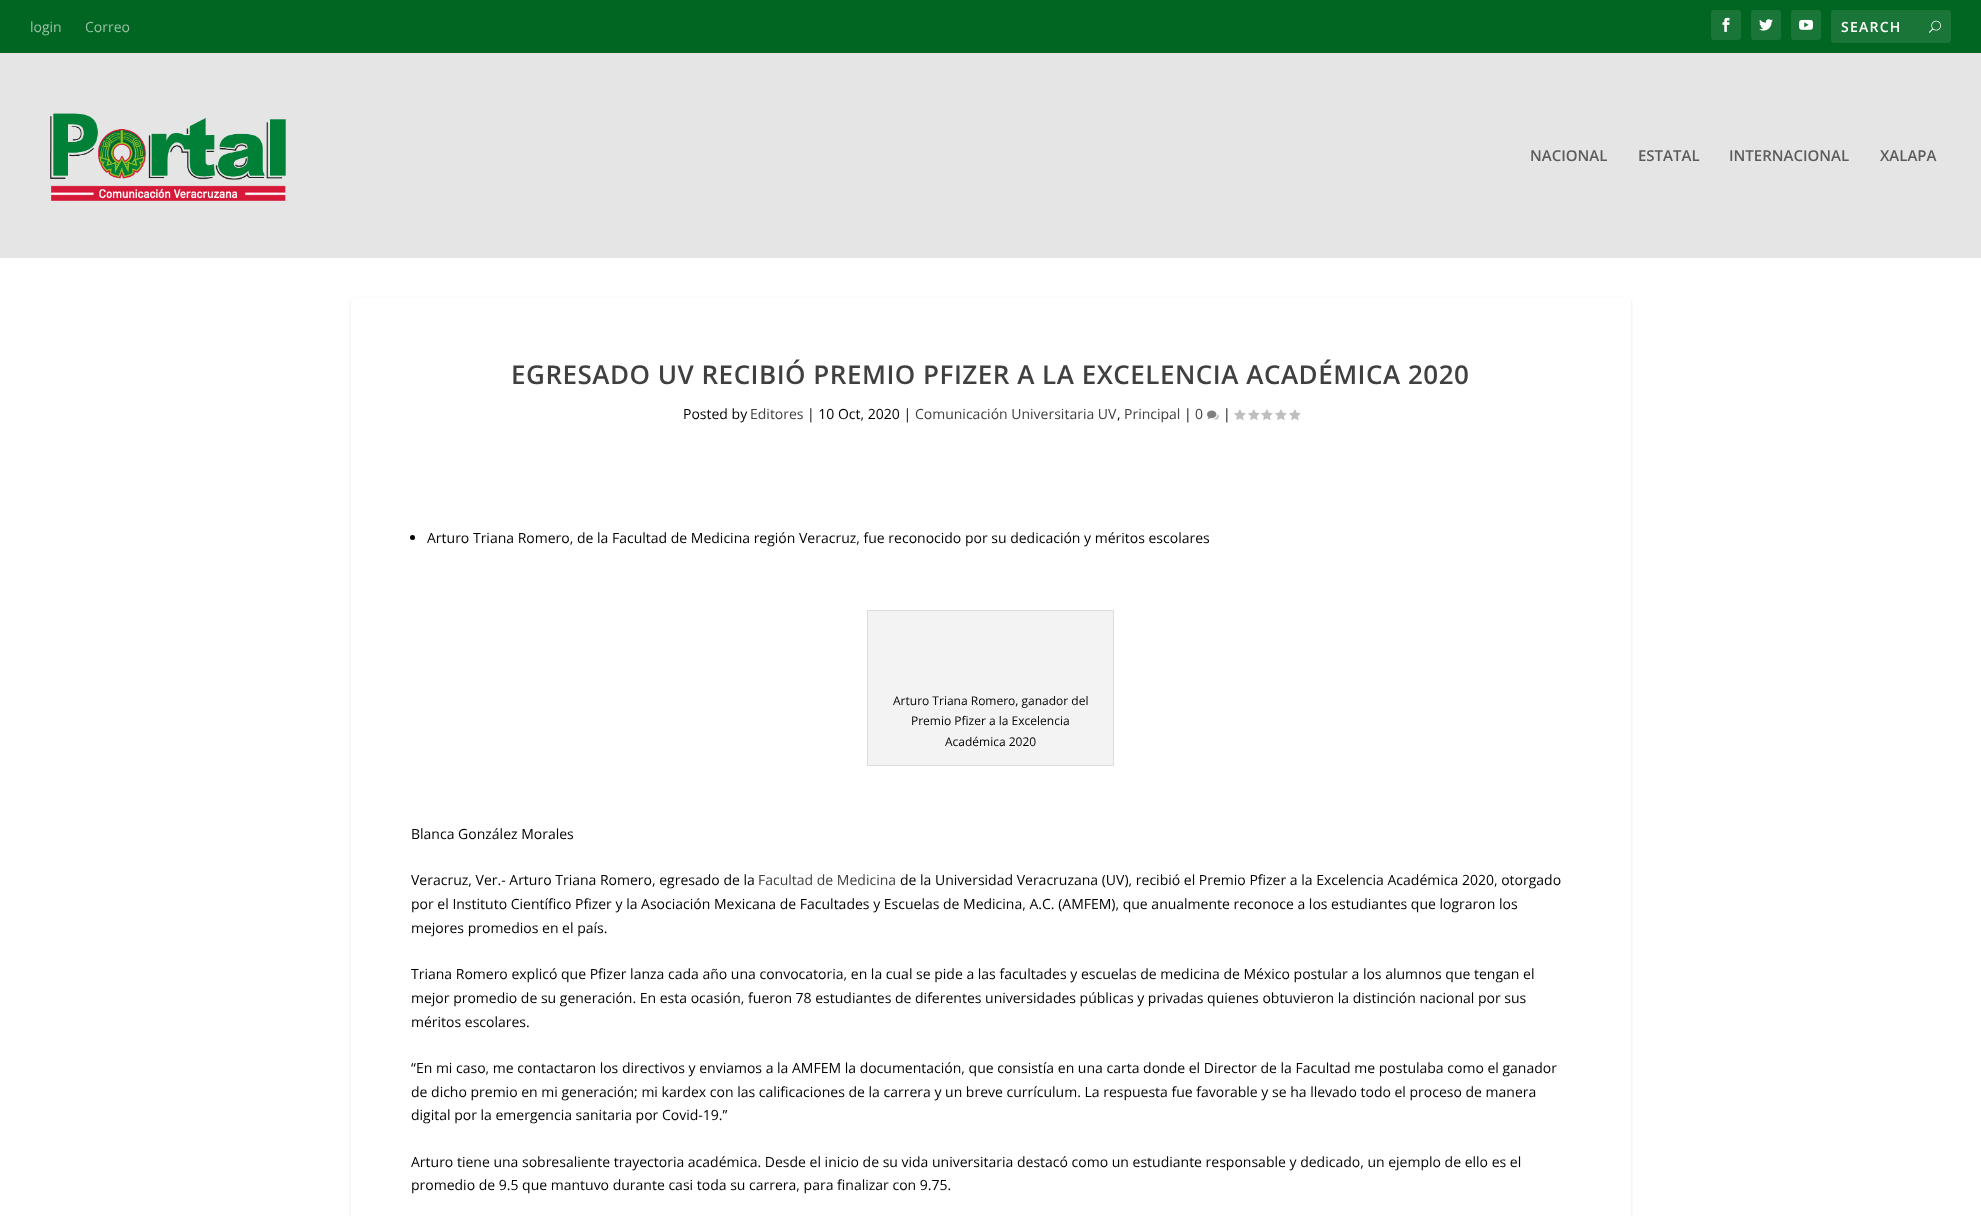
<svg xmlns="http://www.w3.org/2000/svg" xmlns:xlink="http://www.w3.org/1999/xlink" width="1981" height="1216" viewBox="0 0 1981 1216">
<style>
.cls-1{font:14px Open Sans;fill:#99c2a7}
.cls-2{font:600 14px Open Sans;letter-spacing:1.25px;fill:#ffffff}
.cls-3{font:600 15px Open Sans;fill:#5c5c5c}
.cls-4{font:600 26px Open Sans;letter-spacing:0.5px;fill:#404040}
.cls-5{font:14px Open Sans;fill:#000000}
.cls-6{font:14px Open Sans;fill:#404040}
.cls-7{font:12px Open Sans;fill:#000000}
</style>
<rect width="100%" height="100%" fill="#ffffff"/>
<rect fill="#006622" x="0" y="0" width="1981" height="53"/>
<rect fill="#1a7538" x="1711" y="10" width="30" height="30" rx="3"/>
<image xlink:href="image0.png" x="1722" y="17" width="8" height="15"/>
<rect fill="#1a7538" x="1751" y="10" width="30" height="30" rx="3"/>
<image xlink:href="image1.png" x="1759" y="19" width="14" height="12"/>
<rect fill="#1a7538" x="1791" y="10" width="30" height="30" rx="3"/>
<image xlink:href="image2.png" x="1799" y="19" width="14" height="11"/>
<rect fill="#1a7538" x="1831" y="10" width="120" height="33" rx="3"/>
<image xlink:href="image3.png" x="1929" y="20" width="12" height="13"/>
<rect fill="#e5e5e5" x="0" y="53" width="1981" height="205"/>
<image xlink:href="image4.png" x="50" y="113" width="236" height="88"/>
<rect fill="#000000" fill-opacity="0.1" filter="blur(1.5px)" x="351" y="299" width="1280" height="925" rx="3"/>
<rect fill="#ffffff" x="351" y="298" width="1280" height="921" rx="3"/>
<image xlink:href="image5.png" x="1207" y="410" width="12" height="10"/>
<image xlink:href="image6.png" x="1234" y="409" width="12" height="12"/>
<image xlink:href="image6.png" x="1248" y="409" width="12" height="12"/>
<image xlink:href="image6.png" x="1261" y="409" width="12" height="12"/>
<image xlink:href="image6.png" x="1275" y="409" width="12" height="12"/>
<image xlink:href="image6.png" x="1289" y="409" width="12" height="12"/>
<circle fill="#000000" cx="412.5" cy="537.5" r="2.5"/>
<rect fill="#f3f3f3" stroke="#dddddd" x="867.5" y="610.5" width="246" height="155"/>
<text class="cls-1" x="30" y="32">login</text>
<text class="cls-1" x="85" y="32">Correo</text>
<text class="cls-2" x="1841" y="32">SEARCH</text>
<text class="cls-3" x="1530" y="161">NACIONAL</text>
<text class="cls-3" x="1638" y="161">ESTATAL</text>
<text class="cls-3" x="1729" y="161">INTERNACIONAL</text>
<text class="cls-3" x="1880" y="161">XALAPA</text>
<text class="cls-4" x="511" y="384">EGRESADO UV RECIBIÓ PREMIO PFIZER A LA EXCELENCIA ACADÉMICA 2020</text>
<text class="cls-5" x="683" y="419">Posted by</text>
<text class="cls-6" x="750" y="419">Editores</text>
<text class="cls-5" x="807" y="419">| 10 Oct, 2020 |</text>
<text class="cls-6" x="915" y="419">Comunicación Universitaria UV</text>
<text class="cls-5" x="1117" y="419">,</text>
<text class="cls-6" x="1124" y="419">Principal</text>
<text class="cls-5" x="1184" y="419">|</text>
<text class="cls-6" x="1195" y="419">0</text>
<text class="cls-5" x="1223" y="419">|</text>
<text class="cls-5" x="427" y="543">Arturo Triana Romero, de la Facultad de Medicina región Veracruz, fue reconocido por su dedicación y méritos escolares</text>
<text class="cls-7" x="893" y="705">Arturo Triana Romero, ganador del</text>
<text class="cls-7" x="911" y="725">Premio Pfizer a la Excelencia</text>
<text class="cls-7" x="945" y="746">Académica 2020</text>
<text class="cls-5" x="411" y="839">Blanca González Morales</text>
<text class="cls-5" x="411" y="885">Veracruz, Ver.- Arturo Triana Romero, egresado de la</text>
<text class="cls-6" x="758" y="885">Facultad de Medicina</text>
<text class="cls-5" x="900" y="885">de la Universidad Veracruzana (UV), recibió el Premio Pfizer a la Excelencia Académica 2020, otorgado</text>
<text class="cls-5"><tspan x="411" y="909">por el Instituto Científico Pfizer y la Asociación Mexicana de Facultades y Escuelas de Medicina, A.C. (AMFEM), que anualmente reconoce a los estudiantes que lograron los</tspan><tspan x="411" y="933">mejores promedios en el país.</tspan></text>
<text class="cls-5"><tspan x="411" y="979">Triana Romero explicó que Pfizer lanza cada año una convocatoria, en la cual se pide a las facultades y escuelas de medicina de México postular a los alumnos que tengan el</tspan><tspan x="411" y="1003">mejor promedio de su generación. En esta ocasión, fueron 78 estudiantes de diferentes universidades públicas y privadas quienes obtuvieron la distinción nacional por sus</tspan><tspan x="411" y="1027">méritos escolares.</tspan></text>
<text class="cls-5"><tspan x="411" y="1073">“En mi caso, me contactaron los directivos y enviamos a la AMFEM la documentación, que consistía en una carta donde el Director de la Facultad me postulaba como el ganador</tspan><tspan x="411" y="1097">de dicho premio en mi generación; mi kardex con las calificaciones de la carrera y un breve currículum. La respuesta fue favorable y se ha llevado todo el proceso de manera</tspan><tspan x="411" y="1120">digital por la emergencia sanitaria por Covid-19.”</tspan></text>
<text class="cls-5"><tspan x="411" y="1167">Arturo tiene una sobresaliente trayectoria académica. Desde el inicio de su vida universitaria destacó como un estudiante responsable y dedicado, un ejemplo de ello es el</tspan><tspan x="411" y="1190">promedio de 9.5 que mantuvo durante casi toda su carrera, para finalizar con 9.75.</tspan></text>
</svg>
